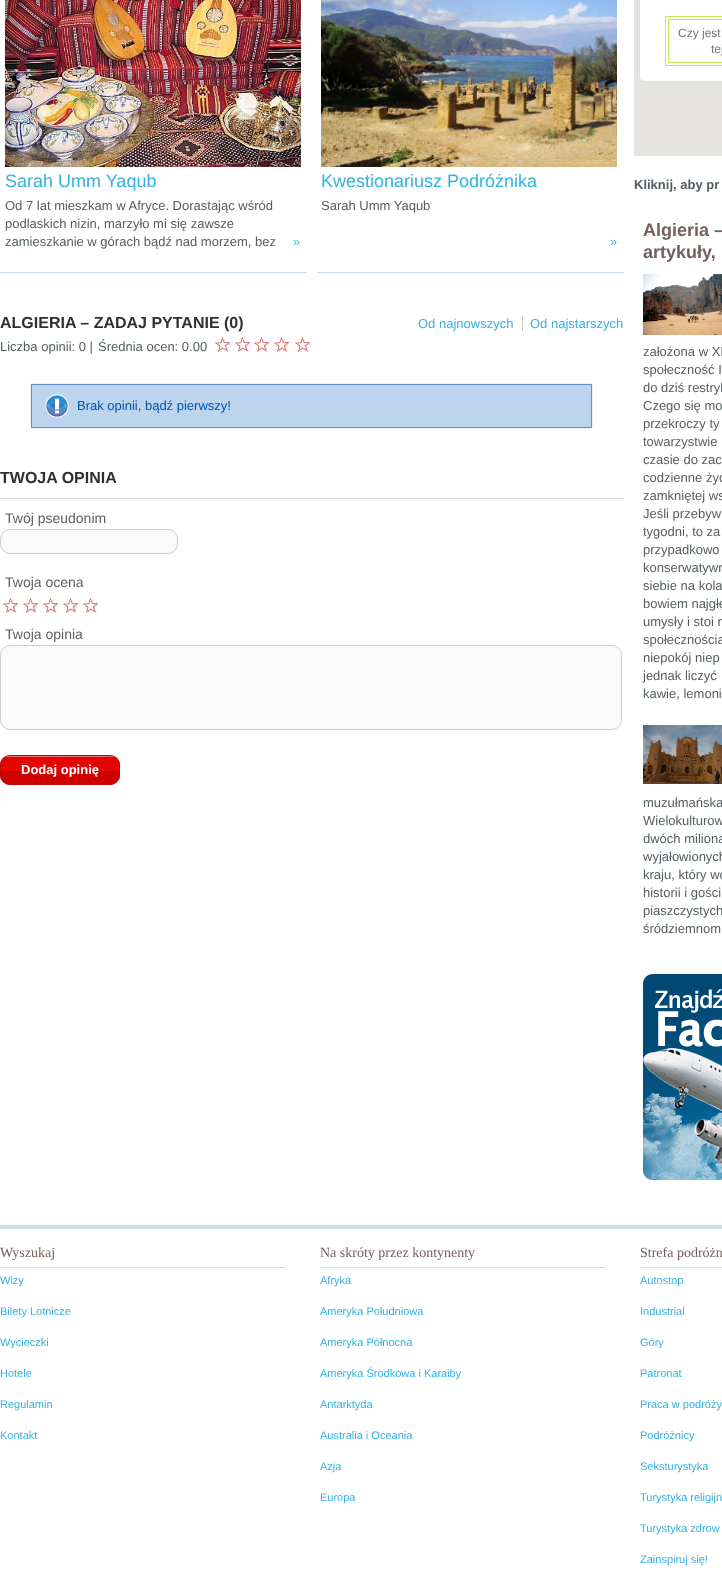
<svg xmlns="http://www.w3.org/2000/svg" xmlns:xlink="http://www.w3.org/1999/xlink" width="722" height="1580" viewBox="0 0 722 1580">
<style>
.cls-1{font:18px Liberation Sans;fill:#33b1e0}
.cls-2{font:13px Liberation Sans;fill:#535d61}
.cls-3{font:13px Liberation Sans;fill:#33b1e0}
.cls-4{font:bold 16px Liberation Sans;fill:#303030}
.cls-5{font:13px Liberation Sans;fill:#0253ad}
.cls-6{font:14px Liberation Sans;fill:#5f5f5f}
.cls-7{font:bold 13px Liberation Sans;fill:#ffffff}
.cls-8{font:12px Liberation Sans;fill:#757575}
.cls-9{font:bold 13px Liberation Sans;fill:#535d61}
.cls-10{font:bold 18px Liberation Sans;fill:#745f5e}
.cls-11{font:14px Liberation Serif;fill:#745f5e}
.cls-12{font:11px Liberation Sans;fill:#33b1e0}
</style>
<rect width="100%" height="100%" fill="#ffffff"/>
<rect fill="#c8dfe7" x="0" y="272" width="307" height="1"/>
<image xlink:href="image0.png" x="5" y="0" width="296" height="167"/>
<rect fill="#c8dfe7" x="317" y="272" width="307" height="1"/>
<image xlink:href="image1.png" x="321" y="0" width="296" height="167"/>
<rect fill="#d1cdcd" x="522" y="316" width="1" height="15"/>
<image xlink:href="image2.png" x="215" y="337" width="95" height="15"/>
<rect fill="#bcd4ee" filter="blur(1px)" x="31" y="384" width="561" height="44"/>
<rect fill="#bcd4ee" x="32" y="385" width="559" height="42"/>
<image xlink:href="image3.png" x="45" y="394" width="24" height="24"/>
<rect fill="none" stroke="#6593c6" x="31.5" y="384.5" width="560" height="43"/>
<rect fill="#dcdcdc" x="0" y="498" width="624" height="1"/>
<rect fill="#fafafa" stroke="#cdcdcd" x="0.5" y="529.5" width="177" height="24" rx="9.5"/>
<image xlink:href="image4.png" x="3" y="598" width="15" height="15"/>
<image xlink:href="image4.png" x="23" y="598" width="15" height="15"/>
<image xlink:href="image4.png" x="43" y="598" width="15" height="15"/>
<image xlink:href="image4.png" x="63" y="598" width="15" height="15"/>
<image xlink:href="image4.png" x="83" y="598" width="15" height="15"/>
<rect fill="#fafafa" stroke="#cdcdcd" x="0.5" y="645.5" width="621" height="84" rx="9.5"/>
<image xlink:href="image5.png" x="0" y="756" width="120" height="29"/>
<rect fill="none" stroke="#b70909" x="0.5" y="755.5" width="119" height="29" rx="9.5"/>
<rect fill="#e5e3df" x="634" y="0" width="88" height="156"/>
<rect fill="#ffffff" x="639" y="-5" width="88" height="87" rx="5"/>
<rect fill="none" stroke="#000000" stroke-opacity="0.12" x="639.5" y="-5.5" width="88" height="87" rx="4.5"/>
<rect fill="none" stroke="#bbee55" x="665.5" y="16.5" width="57" height="49"/>
<rect fill="none" stroke="#bbee55" x="668.5" y="19.5" width="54" height="43"/>
<image xlink:href="image6.png" x="643" y="274" width="79" height="61"/>
<image xlink:href="image7.png" x="643" y="725" width="79" height="59"/>
<image xlink:href="image8.png" x="643" y="974" width="79" height="206"/>
<rect fill="#c8dfe7" x="0" y="1225" width="722" height="4"/>
<rect fill="#c8dfe7" x="0" y="1267" width="285" height="1"/>
<rect fill="#c8dfe7" x="320" y="1267" width="285" height="1"/>
<rect fill="#c8dfe7" x="640" y="1267" width="82" height="1"/>
<text class="cls-1" x="5" y="187">Sarah Umm Yaqub</text>
<text class="cls-2"><tspan x="5" y="210">Od 7 lat mieszkam w Afryce. Dorastając wśród</tspan><tspan x="5" y="228">podlaskich nizin, marzyło mi się zawsze</tspan><tspan x="5" y="246">zamieszkanie w górach bądź nad morzem, bez</tspan></text>
<text class="cls-3" x="293" y="246">»</text>
<text class="cls-1" x="321" y="187">Kwestionariusz Podróżnika</text>
<text class="cls-2" x="321" y="210">Sarah Umm Yaqub</text>
<text class="cls-3" x="610" y="246">»</text>
<text class="cls-4" x="0" y="328">ALGIERIA – ZADAJ PYTANIE (0)</text>
<text class="cls-3" x="418" y="328">Od najnowszych</text>
<text class="cls-3" x="530" y="328">Od najstarszych</text>
<text class="cls-2" x="0" y="351">Liczba opinii: 0 |</text>
<text class="cls-2" x="98" y="351">Średnia ocen: 0.00</text>
<text class="cls-5" x="77" y="410">Brak opinii, bądź pierwszy!</text>
<text class="cls-4" x="0" y="483">TWOJA OPINIA</text>
<text class="cls-6" x="5" y="523">Twój pseudonim</text>
<text class="cls-6" x="5" y="587">Twoja ocena</text>
<text class="cls-6" x="5" y="639">Twoja opinia</text>
<text class="cls-7" x="21" y="774">Dodaj opinię</text>
<text class="cls-8" x="678" y="37">Czy jest</text>
<text class="cls-8" x="711" y="53">tej</text>
<text class="cls-9" x="634" y="189">Kliknij, aby pr</text>
<text class="cls-10"><tspan x="643" y="236">Algieria –</tspan><tspan x="643" y="258">artykuły,</tspan></text>
<text class="cls-2"><tspan x="643" y="356">założona w XI</tspan><tspan x="643" y="374">społeczność I</tspan><tspan x="643" y="392">do dziś restryk</tspan><tspan x="643" y="410">Czego się mo</tspan><tspan x="643" y="428">przekroczy ty</tspan><tspan x="643" y="446">towarzystwie</tspan><tspan x="643" y="464">czasie do zac</tspan><tspan x="643" y="482">codzienne życ</tspan><tspan x="643" y="500">zamkniętej ws</tspan><tspan x="643" y="518">Jeśli przebyw</tspan><tspan x="643" y="536">tygodni, to za</tspan><tspan x="643" y="554">przypadkowo</tspan><tspan x="643" y="572">konserwatywn</tspan><tspan x="643" y="590">siebie na kola</tspan><tspan x="643" y="608">bowiem najgłę</tspan><tspan x="643" y="626">umysły i stoi n</tspan><tspan x="643" y="644">społecznościa</tspan><tspan x="643" y="662">niepokój niep</tspan><tspan x="643" y="680">jednak liczyć</tspan><tspan x="643" y="698">kawie, lemoni</tspan></text>
<text class="cls-2"><tspan x="643" y="807">muzułmańska</tspan><tspan x="643" y="825">Wielokulturow</tspan><tspan x="643" y="843">dwóch miliona</tspan><tspan x="643" y="861">wyjałowionych</tspan><tspan x="643" y="879">kraju, który wc</tspan><tspan x="643" y="897">historii i gości</tspan><tspan x="643" y="915">piaszczystych</tspan><tspan x="643" y="933">śródziemnom</tspan></text>
<text class="cls-11" x="0" y="1257">Wyszukaj</text>
<text class="cls-12" x="0" y="1284">Wizy</text>
<text class="cls-12" x="0" y="1315">Bilety Lotnicze</text>
<text class="cls-12" x="0" y="1346">Wycieczki</text>
<text class="cls-12" x="0" y="1377">Hotele</text>
<text class="cls-12" x="0" y="1408">Regulamin</text>
<text class="cls-12" x="0" y="1439">Kontakt</text>
<text class="cls-11" x="320" y="1257">Na skróty przez kontynenty</text>
<text class="cls-12" x="320" y="1284">Afryka</text>
<text class="cls-12" x="320" y="1315">Ameryka Południowa</text>
<text class="cls-12" x="320" y="1346">Ameryka Północna</text>
<text class="cls-12" x="320" y="1377">Ameryka Środkowa i Karaiby</text>
<text class="cls-12" x="320" y="1408">Antarktyda</text>
<text class="cls-12" x="320" y="1439">Australia i Oceania</text>
<text class="cls-12" x="320" y="1470">Azja</text>
<text class="cls-12" x="320" y="1501">Europa</text>
<text class="cls-11" x="640" y="1257">Strefa podróżn</text>
<text class="cls-12" x="640" y="1284">Autostop</text>
<text class="cls-12" x="640" y="1315">Industrial</text>
<text class="cls-12" x="640" y="1346">Góry</text>
<text class="cls-12" x="640" y="1377">Patronat</text>
<text class="cls-12" x="640" y="1408">Praca w podróży</text>
<text class="cls-12" x="640" y="1439">Podróżnicy</text>
<text class="cls-12" x="640" y="1470">Seksturystyka</text>
<text class="cls-12" x="640" y="1501">Turystyka religijn</text>
<text class="cls-12" x="640" y="1532">Turystyka zdrow</text>
<text class="cls-12" x="640" y="1563">Zainspiruj się!</text>
</svg>
